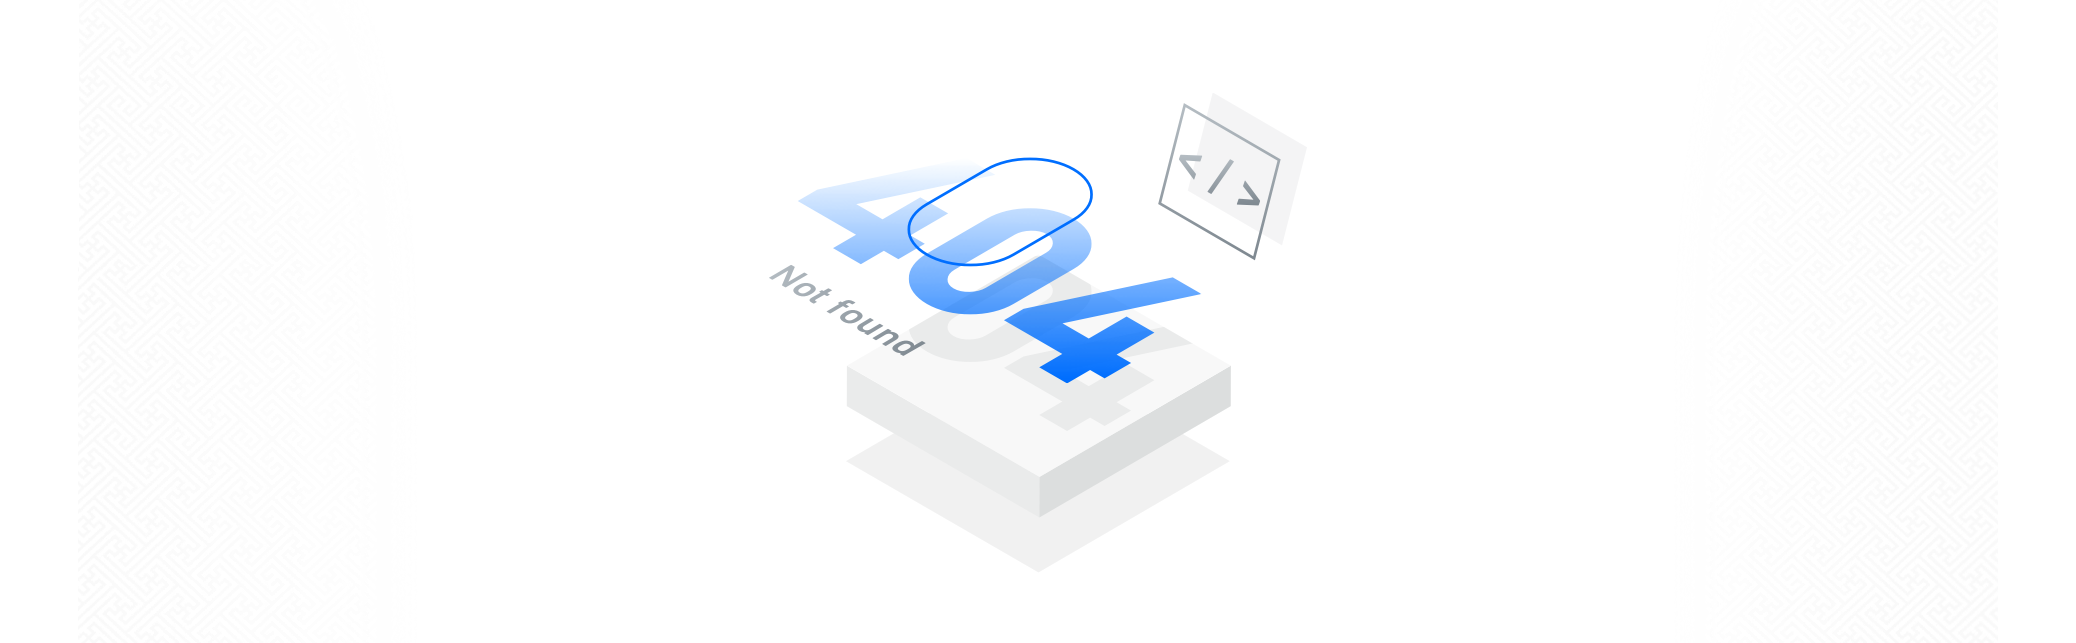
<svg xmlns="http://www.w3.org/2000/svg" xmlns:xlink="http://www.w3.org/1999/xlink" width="2076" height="643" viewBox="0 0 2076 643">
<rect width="100%" height="100%" fill="#ffffff"/>
<image xlink:href="image0.png" x="78" y="0" width="1920" height="643"/>
<image xlink:href="image1.png" x="769" y="93" width="538" height="480"/>
</svg>
